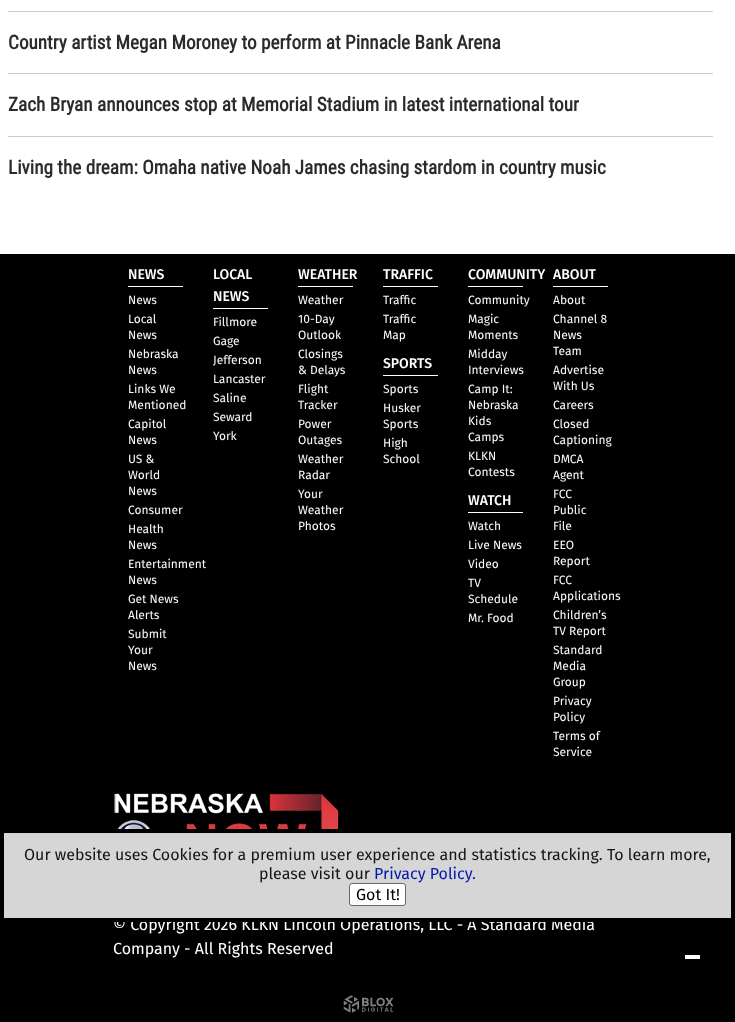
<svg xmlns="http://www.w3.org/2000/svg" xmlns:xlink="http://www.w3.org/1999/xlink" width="735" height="1022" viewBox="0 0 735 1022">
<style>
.cls-1{font:bold 19.2px Roboto Condensed;fill:#2b2b2b}
.cls-2{font:500 14px Fira Sans;fill:#ffffff}
.cls-3{font:12px Fira Sans;fill:#f8f9fa}
.cls-4{font:16px Fira Sans;fill:#ffffff}
.cls-5{font:16px Fira Sans;fill:#141414}
.cls-6{font:16px Fira Sans;fill:#0316ad}
.cls-7{font:16px Fira Sans;fill:#000000}
</style>
<rect width="100%" height="100%" fill="#ffffff"/>
<rect fill="#cccccc" x="8" y="11" width="705" height="1"/>
<rect fill="#cccccc" x="8" y="73" width="705" height="1"/>
<rect fill="#cccccc" x="8" y="136" width="705" height="1"/>
<rect fill="#000000" x="0" y="254" width="735" height="768"/>
<rect fill="#ffffff" x="685" y="955" width="15" height="4"/>
<rect fill="#ffffff" x="128" y="286" width="55" height="1"/>
<rect fill="#ffffff" x="213" y="308" width="55" height="1"/>
<rect fill="#ffffff" x="298" y="286" width="55" height="1"/>
<rect fill="#ffffff" x="383" y="286" width="55" height="1"/>
<rect fill="#ffffff" x="383" y="375" width="55" height="1"/>
<rect fill="#ffffff" x="468" y="286" width="55" height="1"/>
<rect fill="#ffffff" x="468" y="512" width="55" height="1"/>
<rect fill="#ffffff" x="553" y="286" width="55" height="1"/>
<image xlink:href="image0.png" x="114" y="793" width="225" height="36"/>
<image xlink:href="image1.png" x="343" y="995" width="50" height="18"/>
<rect fill="#020202" fill-opacity="0.23" filter="blur(8px)" x="16" y="841" width="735" height="93"/>
<text class="cls-1" x="8" y="49">Country artist Megan Moroney to perform at Pinnacle Bank Arena</text>
<text class="cls-1" x="8" y="111">Zach Bryan announces stop at Memorial Stadium in latest international tour</text>
<text class="cls-1" x="8" y="174">Living the dream: Omaha native Noah James chasing stardom in country music</text>
<text class="cls-2" x="128" y="279">NEWS</text>
<text class="cls-3"><tspan x="128" y="304">News</tspan><tspan x="128" y="323">Local</tspan><tspan x="128" y="339">News</tspan><tspan x="128" y="358">Nebraska</tspan><tspan x="128" y="374">News</tspan><tspan x="128" y="393">Links We</tspan><tspan x="128" y="409">Mentioned</tspan><tspan x="128" y="428">Capitol</tspan><tspan x="128" y="444">News</tspan><tspan x="128" y="463">US &amp;</tspan><tspan x="128" y="479">World</tspan><tspan x="128" y="495">News</tspan><tspan x="128" y="514">Consumer</tspan><tspan x="128" y="533">Health</tspan><tspan x="128" y="549">News</tspan><tspan x="128" y="568">Entertainment</tspan><tspan x="128" y="584">News</tspan><tspan x="128" y="603">Get News</tspan><tspan x="128" y="619">Alerts</tspan><tspan x="128" y="638">Submit</tspan><tspan x="128" y="654">Your</tspan><tspan x="128" y="670">News</tspan></text>
<text class="cls-2"><tspan x="213" y="279">LOCAL</tspan><tspan x="213" y="301">NEWS</tspan></text>
<text class="cls-3"><tspan x="213" y="326">Fillmore</tspan><tspan x="213" y="345">Gage</tspan><tspan x="213" y="364">Jefferson</tspan><tspan x="213" y="383">Lancaster</tspan><tspan x="213" y="402">Saline</tspan><tspan x="213" y="421">Seward</tspan><tspan x="213" y="440">York</tspan></text>
<text class="cls-2" x="298" y="279">WEATHER</text>
<text class="cls-3"><tspan x="298" y="304">Weather</tspan><tspan x="298" y="323">10-Day</tspan><tspan x="298" y="339">Outlook</tspan><tspan x="298" y="358">Closings</tspan><tspan x="298" y="374">&amp; Delays</tspan><tspan x="298" y="393">Flight</tspan><tspan x="298" y="409">Tracker</tspan><tspan x="298" y="428">Power</tspan><tspan x="298" y="444">Outages</tspan><tspan x="298" y="463">Weather</tspan><tspan x="298" y="479">Radar</tspan><tspan x="298" y="498">Your</tspan><tspan x="298" y="514">Weather</tspan><tspan x="298" y="530">Photos</tspan></text>
<text class="cls-2" x="383" y="279">TRAFFIC</text>
<text class="cls-3"><tspan x="383" y="304">Traffic</tspan><tspan x="383" y="323">Traffic</tspan><tspan x="383" y="339">Map</tspan></text>
<text class="cls-2" x="383" y="368">SPORTS</text>
<text class="cls-3"><tspan x="383" y="393">Sports</tspan><tspan x="383" y="412">Husker</tspan><tspan x="383" y="428">Sports</tspan><tspan x="383" y="447">High</tspan><tspan x="383" y="463">School</tspan></text>
<text class="cls-2" x="468" y="279">COMMUNITY</text>
<text class="cls-3"><tspan x="468" y="304">Community</tspan><tspan x="468" y="323">Magic</tspan><tspan x="468" y="339">Moments</tspan><tspan x="468" y="358">Midday</tspan><tspan x="468" y="374">Interviews</tspan><tspan x="468" y="393">Camp It:</tspan><tspan x="468" y="409">Nebraska</tspan><tspan x="468" y="425">Kids</tspan><tspan x="468" y="441">Camps</tspan><tspan x="468" y="460">KLKN</tspan><tspan x="468" y="476">Contests</tspan></text>
<text class="cls-2" x="468" y="505">WATCH</text>
<text class="cls-3"><tspan x="468" y="530">Watch</tspan><tspan x="468" y="549">Live News</tspan><tspan x="468" y="568">Video</tspan><tspan x="468" y="587">TV</tspan><tspan x="468" y="603">Schedule</tspan><tspan x="468" y="622">Mr. Food</tspan></text>
<text class="cls-2" x="553" y="279">ABOUT</text>
<text class="cls-3"><tspan x="553" y="304">About</tspan><tspan x="553" y="323">Channel 8</tspan><tspan x="553" y="339">News</tspan><tspan x="553" y="355">Team</tspan><tspan x="553" y="374">Advertise</tspan><tspan x="553" y="390">With Us</tspan><tspan x="553" y="409">Careers</tspan><tspan x="553" y="428">Closed</tspan><tspan x="553" y="444">Captioning</tspan><tspan x="553" y="463">DMCA</tspan><tspan x="553" y="479">Agent</tspan><tspan x="553" y="498">FCC</tspan><tspan x="553" y="514">Public</tspan><tspan x="553" y="530">File</tspan><tspan x="553" y="549">EEO</tspan><tspan x="553" y="565">Report</tspan><tspan x="553" y="584">FCC</tspan><tspan x="553" y="600">Applications</tspan><tspan x="553" y="619">Children’s</tspan><tspan x="553" y="635">TV Report</tspan><tspan x="553" y="654">Standard</tspan><tspan x="553" y="670">Media</tspan><tspan x="553" y="686">Group</tspan><tspan x="553" y="705">Privacy</tspan><tspan x="553" y="721">Policy</tspan><tspan x="553" y="740">Terms of</tspan><tspan x="553" y="756">Service</tspan></text>
<text class="cls-4"><tspan x="113" y="930">© Copyright 2026 KLKN Lincoln Operations, LLC - A Standard Media</tspan><tspan x="113" y="954">Company - All Rights Reserved</tspan></text>
<rect fill="#d6d6d6" stroke="#000000" stroke-width="4" x="2" y="831" width="731" height="89"/>
<text class="cls-5" x="24" y="860">Our website uses Cookies for a premium user experience and statistics tracking. To learn more,</text>
<text class="cls-5" x="259" y="879">please visit our</text>
<text class="cls-6" x="374" y="879">Privacy Policy.</text>
<rect fill="#ffffff" stroke="#666666" x="349.5" y="883.5" width="56" height="22" rx="2.5"/>
<text class="cls-7" x="356" y="900">Got It!</text>
</svg>
